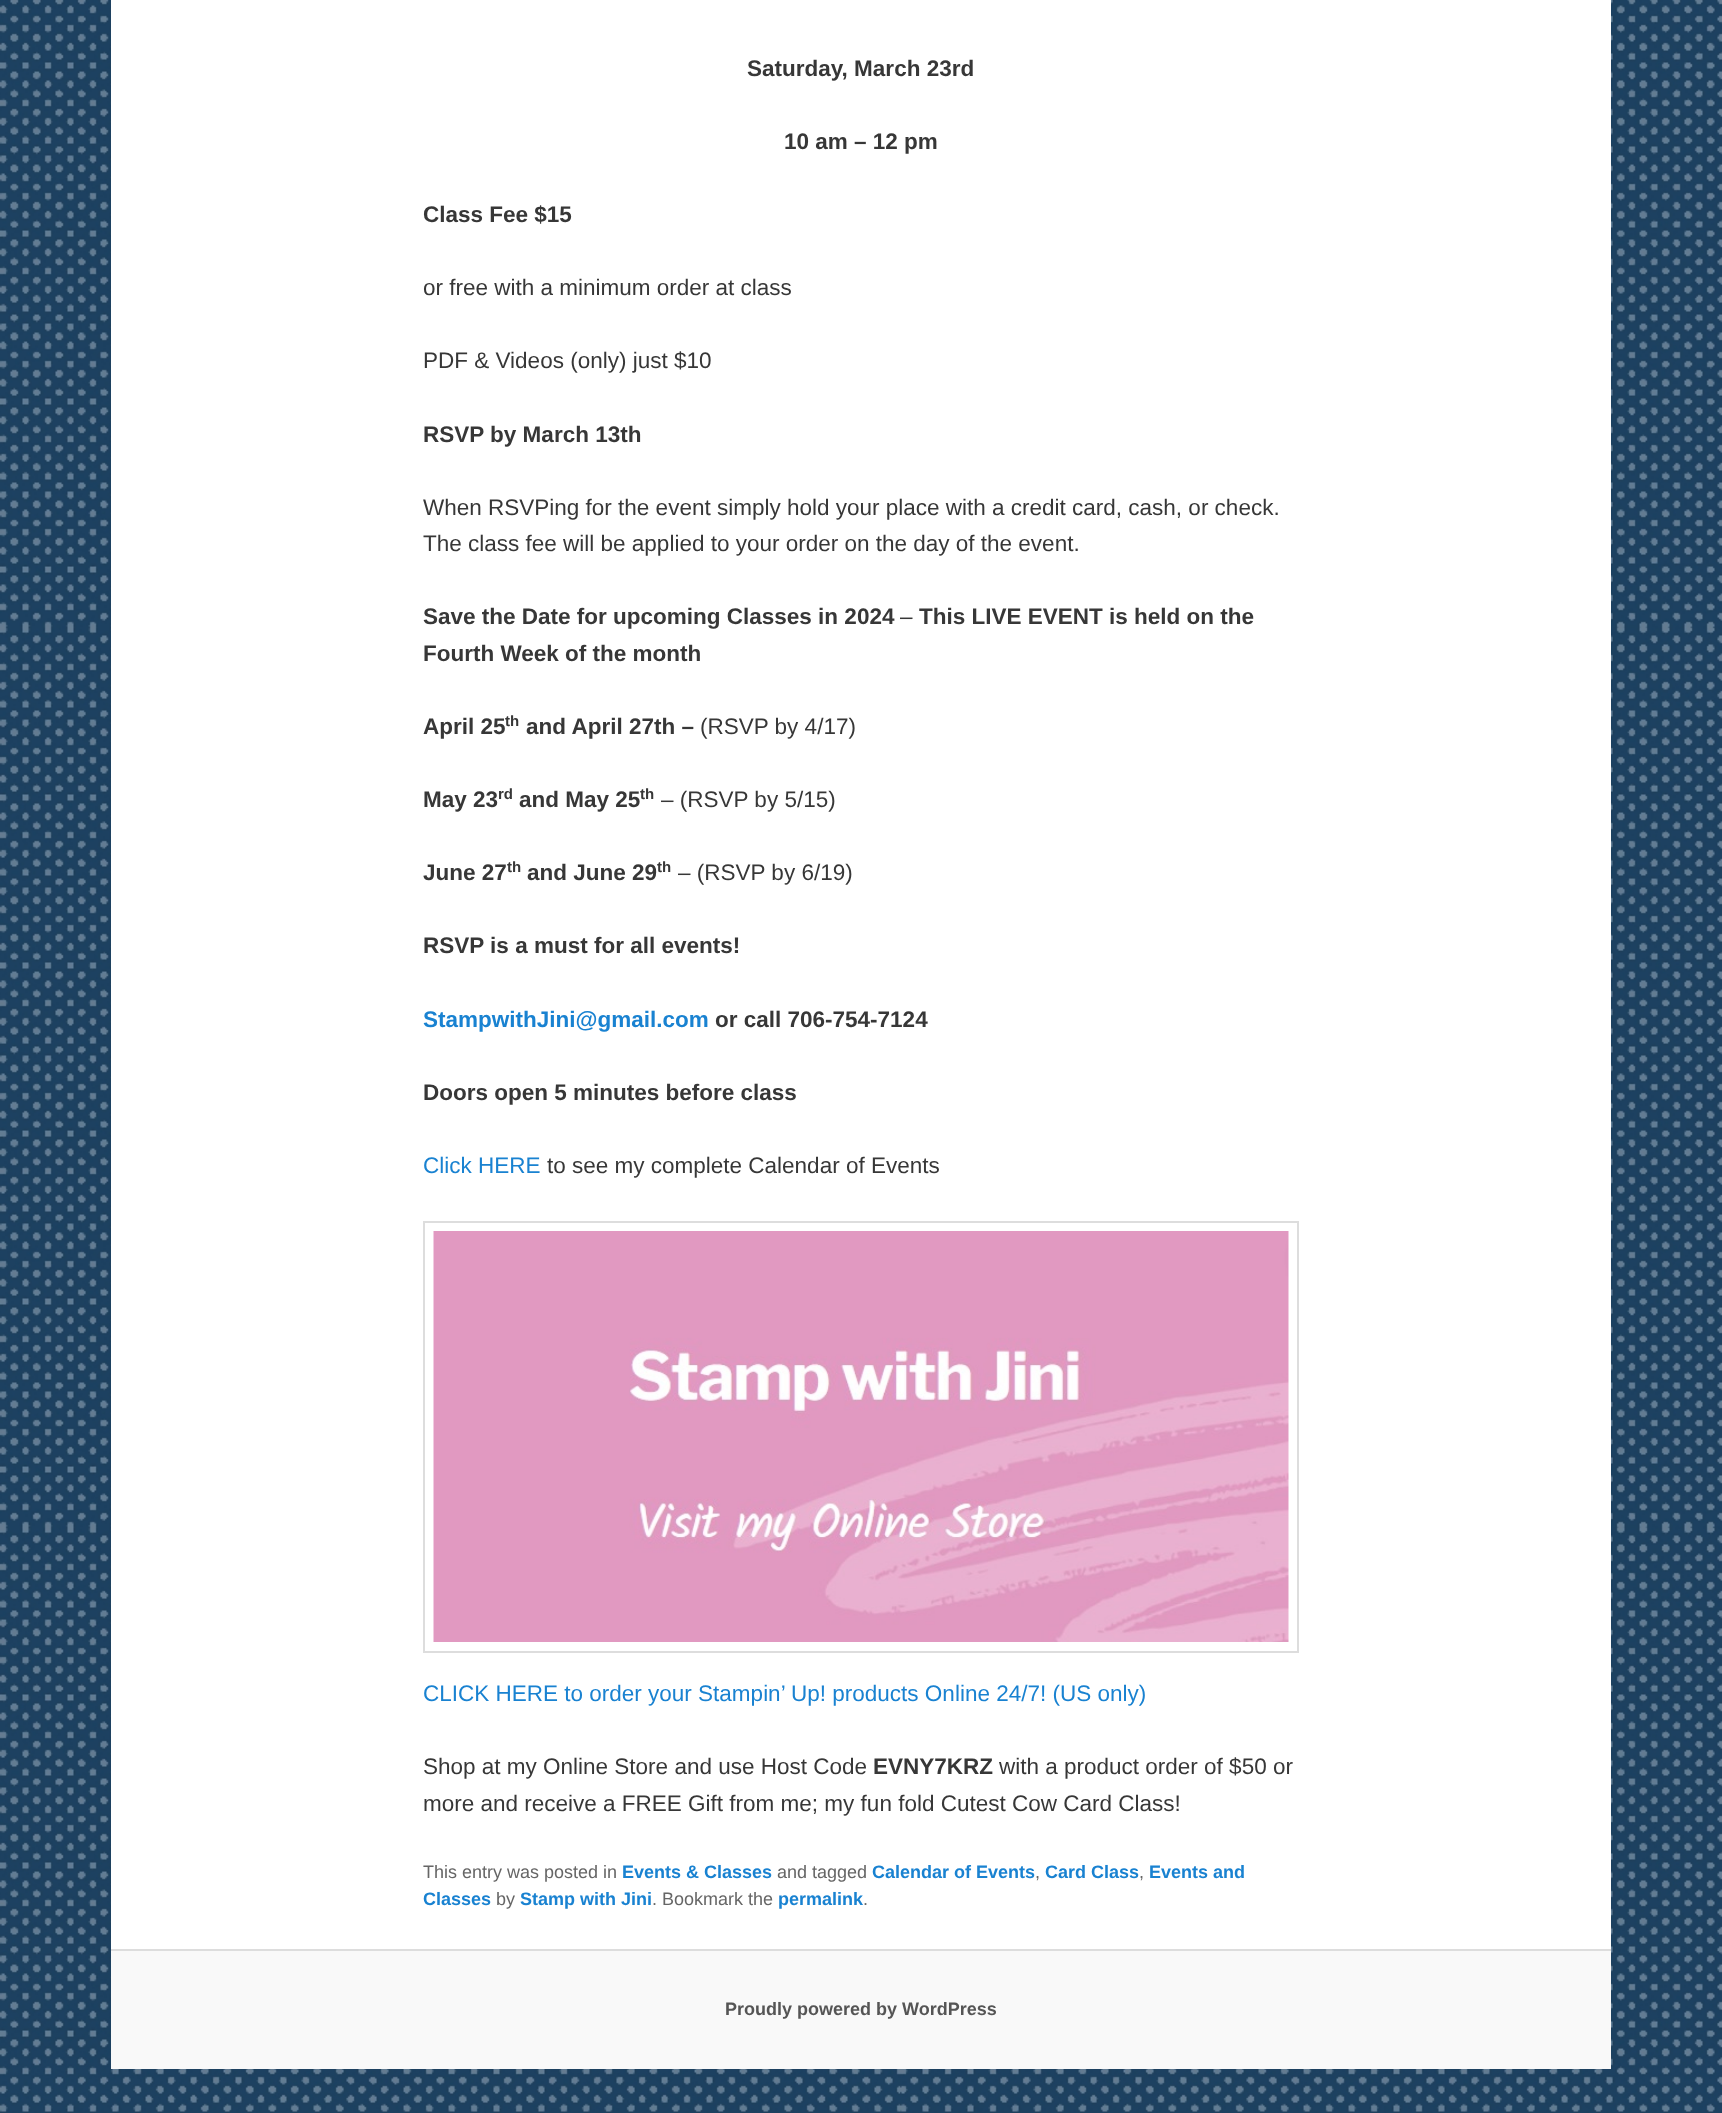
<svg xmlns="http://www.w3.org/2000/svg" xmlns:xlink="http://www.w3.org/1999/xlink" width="1722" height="2113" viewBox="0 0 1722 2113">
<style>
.cls-1{font:bold 22.5px Liberation Sans;fill:#373737}
.cls-2{font:22.5px Liberation Sans;fill:#373737}
.cls-3{font:bold 15px Liberation Sans;fill:#373737}
.cls-4{font:bold 22.5px Liberation Sans;fill:#1982d1}
.cls-5{font:22.5px Liberation Sans;fill:#1982d1}
.cls-6{font:18px Liberation Sans;fill:#666666}
.cls-7{font:bold 18px Liberation Sans;fill:#1982d1}
.cls-8{font:bold 18px Liberation Sans;fill:#555555}
</style>
<rect width="100%" height="100%" fill="#ffffff"/>
<image xlink:href="image0.png" x="0" y="0" width="1722" height="2113"/>
<rect fill="#ffffff" x="111" y="0" width="1500" height="1949"/>
<rect fill="none" stroke="#dddddd" stroke-width="2" x="424" y="1222" width="874" height="430"/>
<image xlink:href="image1.png" x="433" y="1231" width="856" height="411"/>
<rect fill="#f9f9f9" x="111" y="1951" width="1500" height="118"/>
<rect fill="#dddddd" x="111" y="1949" width="1500" height="2"/>
<text class="cls-1" x="747" y="76">Saturday, March 23rd</text>
<text class="cls-1" x="784" y="149">10 am – 12 pm</text>
<text class="cls-1" x="423" y="222">Class Fee $15</text>
<text class="cls-2" x="423" y="295">or free with a minimum order at class</text>
<text class="cls-2" x="423" y="368">PDF &amp; Videos (only) just $10</text>
<text class="cls-1" x="423" y="442">RSVP by March 13th</text>
<text class="cls-2"><tspan x="423" y="515">When RSVPing for the event simply hold your place with a credit card, cash, or check.</tspan><tspan x="423" y="551">The class fee will be applied to your order on the day of the event.</tspan></text>
<text class="cls-1" x="423" y="624">Save the Date for upcoming Classes in 2024</text>
<text class="cls-2" x="900" y="624">–</text>
<text class="cls-1" x="919" y="624">This LIVE EVENT is held on the</text>
<text class="cls-1" x="423" y="661">Fourth Week of the month</text>
<text class="cls-1" x="423" y="734">April 25</text>
<text class="cls-3" x="505" y="726">th</text>
<text class="cls-1" x="526" y="734">and April 27th –</text>
<text class="cls-2" x="700" y="734">(RSVP by 4/17)</text>
<text class="cls-1" x="423" y="807">May 23</text>
<text class="cls-3" x="498" y="799">rd</text>
<text class="cls-1" x="519" y="807">and May 25</text>
<text class="cls-3" x="640" y="799">th</text>
<text class="cls-2" x="661" y="807">– (RSVP by 5/15)</text>
<text class="cls-1" x="423" y="880">June 27</text>
<text class="cls-3" x="507" y="872">th</text>
<text class="cls-1" x="527" y="880">and June 29</text>
<text class="cls-3" x="657" y="872">th</text>
<text class="cls-2" x="678" y="880">– (RSVP by 6/19)</text>
<text class="cls-1" x="423" y="953">RSVP is a must for all events!</text>
<text class="cls-4" x="423" y="1027">StampwithJini@gmail.com</text>
<text class="cls-1" x="715" y="1027">or call 706-754-7124</text>
<text class="cls-1" x="423" y="1100">Doors open 5 minutes before class</text>
<text class="cls-5" x="423" y="1173">Click HERE</text>
<text class="cls-2" x="547" y="1173">to see my complete Calendar of Events</text>
<text class="cls-5" x="423" y="1701">CLICK HERE to order your Stampin’ Up! products Online 24/7! (US only)</text>
<text class="cls-2" x="423" y="1774">Shop at my Online Store and use Host Code</text>
<text class="cls-1" x="873" y="1774">EVNY7KRZ</text>
<text class="cls-2" x="999" y="1774">with a product order of $50 or</text>
<text class="cls-2" x="423" y="1811">more and receive a FREE Gift from me; my fun fold Cutest Cow Card Class!</text>
<text class="cls-6" x="423" y="1878">This entry was posted in</text>
<text class="cls-7" x="622" y="1878">Events &amp; Classes</text>
<text class="cls-6" x="777" y="1878">and tagged</text>
<text class="cls-7" x="872" y="1878">Calendar of Events</text>
<text class="cls-6" x="1035" y="1878">,</text>
<text class="cls-7" x="1045" y="1878">Card Class</text>
<text class="cls-6" x="1139" y="1878">,</text>
<text class="cls-7" x="1149" y="1878">Events and</text>
<text class="cls-7" x="423" y="1905">Classes</text>
<text class="cls-6" x="496" y="1905">by</text>
<text class="cls-7" x="520" y="1905">Stamp with Jini</text>
<text class="cls-6" x="652" y="1905">. Bookmark the</text>
<text class="cls-7" x="778" y="1905">permalink</text>
<text class="cls-6" x="863" y="1905">.</text>
<text class="cls-8" x="725" y="2015">Proudly powered by WordPress</text>
</svg>
